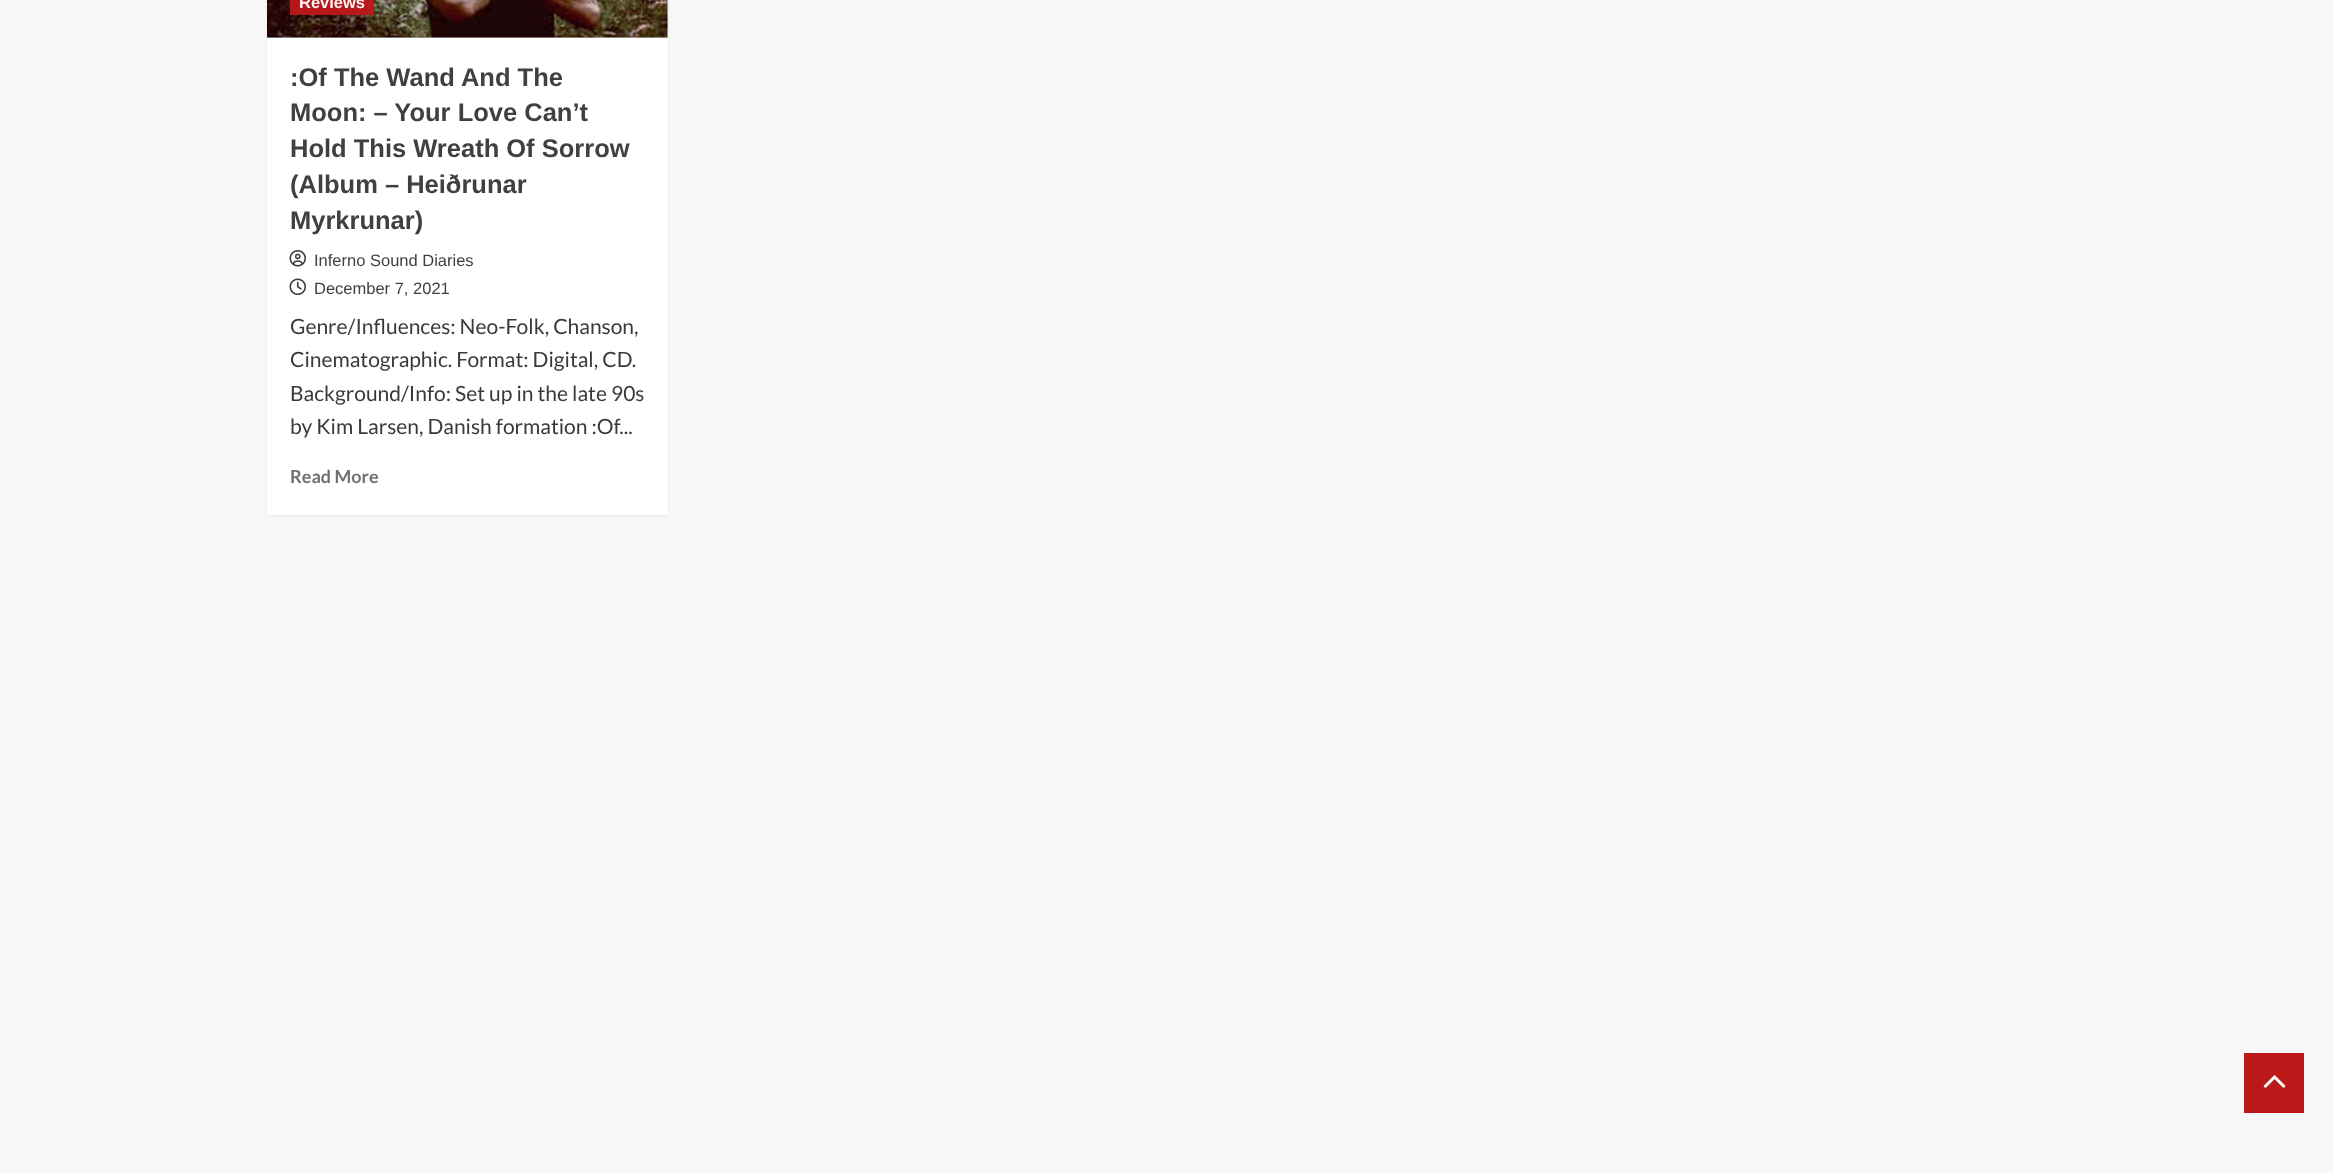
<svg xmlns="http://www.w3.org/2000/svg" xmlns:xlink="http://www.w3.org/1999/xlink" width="2333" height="1173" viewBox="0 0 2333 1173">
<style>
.cls-1{font:bold 16.5px Liberation Sans;fill:#fcf6f6}
.cls-2{font:bold 25.5px Liberation Sans;fill:#404040}
.cls-3{font:16.5px Liberation Sans;fill:#404040}
.cls-4{font:21px Lato;fill:#3a3a3a}
.cls-5{font:bold 18px Lato;fill:#707070}
</style>
<rect width="100%" height="100%" fill="#f7f7f7"/>
<rect fill="#000000" fill-opacity="0.05" filter="blur(1.5px)" x="267" y="-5" width="401" height="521"/>
<rect fill="#ffffff" x="267" y="38" width="401" height="477"/>
<rect fill="#d8d8d8" x="267" y="0" width="401" height="38"/>
<image xlink:href="image0.png" x="267" y="0" width="401" height="38"/>
<rect fill="#bb1919" fill-opacity="0.96" x="290" y="0" width="84" height="15"/>
<image xlink:href="image1.png" x="289" y="250" width="17" height="17"/>
<image xlink:href="image2.png" x="289" y="278" width="17" height="17"/>
<rect fill="#bb1919" x="2244" y="1053" width="60" height="60"/>
<image xlink:href="image3.png" x="2263" y="1075" width="23" height="13"/>
<text class="cls-1" x="299" y="8">Reviews</text>
<text class="cls-2"><tspan x="290" y="86">:Of The Wand And The</tspan><tspan x="290" y="121">Moon: – Your Love Can’t</tspan><tspan x="290" y="157">Hold This Wreath Of Sorrow</tspan><tspan x="290" y="193">(Album – Heiðrunar</tspan><tspan x="290" y="229">Myrkrunar)</tspan></text>
<text class="cls-3"><tspan x="314" y="266">Inferno Sound Diaries</tspan><tspan x="314" y="294">December 7, 2021</tspan></text>
<text class="cls-4"><tspan x="290" y="334">Genre/Influences: Neo-Folk, Chanson,</tspan><tspan x="290" y="367">Cinematographic. Format: Digital, CD.</tspan><tspan x="290" y="401">Background/Info: Set up in the late 90s</tspan><tspan x="290" y="434">by Kim Larsen, Danish formation :Of...</tspan></text>
<text class="cls-5" x="290" y="483">Read More</text>
</svg>
